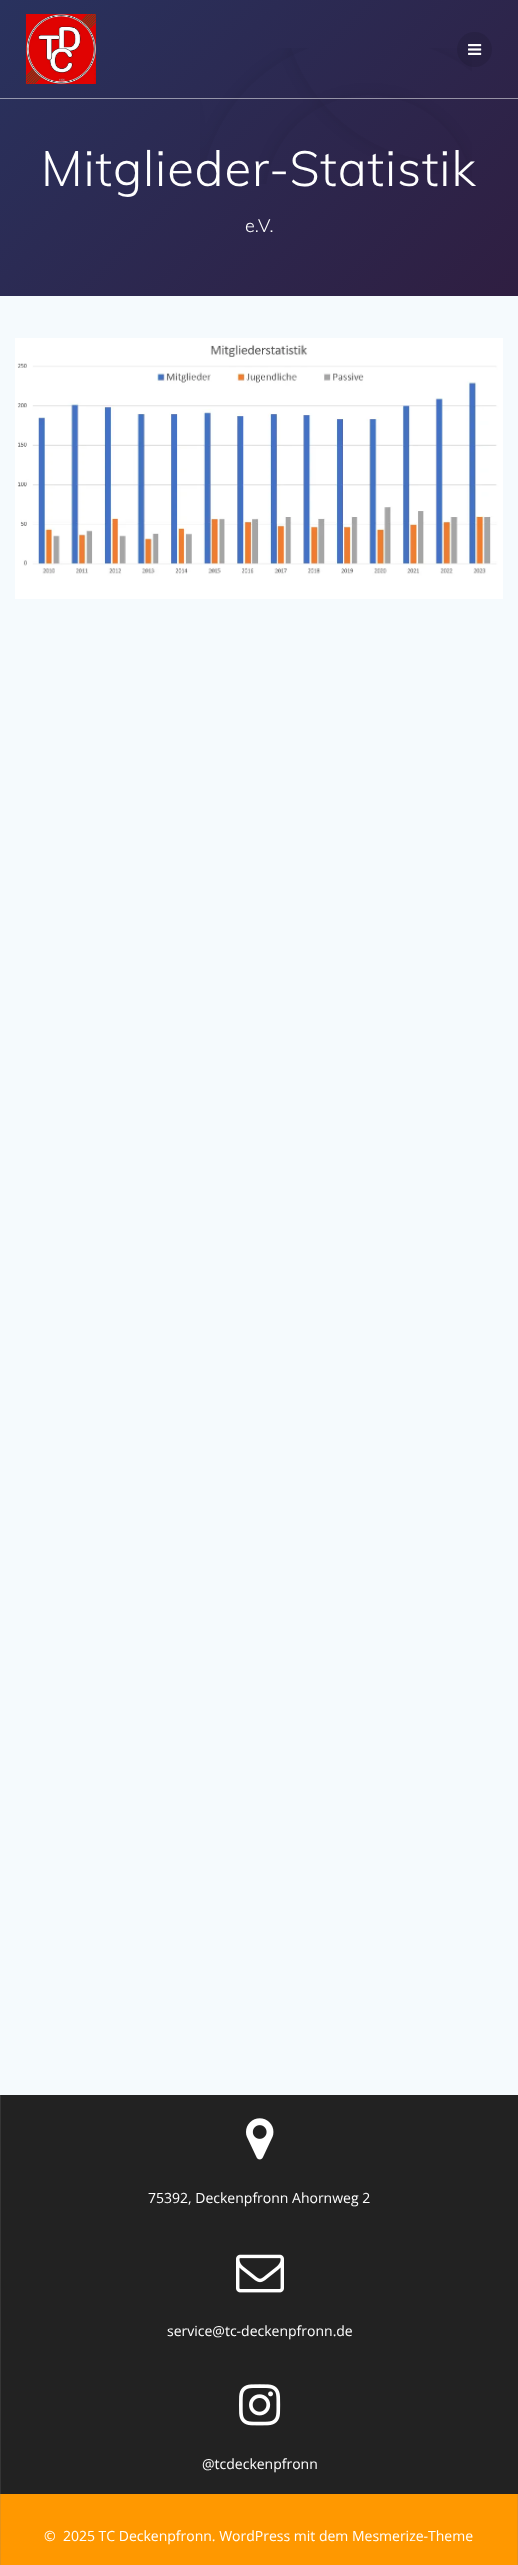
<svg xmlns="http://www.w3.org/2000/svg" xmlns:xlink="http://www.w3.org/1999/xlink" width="518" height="2565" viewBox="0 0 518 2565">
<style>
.cls-1{font:300 49px Muli;letter-spacing:0.9px;fill:#ffffff}
.cls-2{font:300 18px Muli;fill:#ffffff}
.cls-3{font:14px Open Sans;fill:#ffffff}
</style>
<defs>
<linearGradient id="g1" gradientUnits="userSpaceOnUse" x1="56" y1="-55" x2="463" y2="352"><stop offset="0" stop-color="#29325e"/><stop offset="1" stop-color="#2f1e41"/></linearGradient>
</defs>
<rect width="100%" height="100%" fill="#ffffff"/>
<rect fill="url(#g1)" x="0" y="0" width="518" height="296"/>
<image xlink:href="image2.png" x="200" y="48" width="272" height="136"/>
<rect fill="#ffffff" fill-opacity="0.5" x="0" y="98" width="518" height="1"/>
<image xlink:href="image0.png" x="25" y="14" width="71" height="70"/>
<circle fill="#000000" fill-opacity="0.1" cx="474.5" cy="49.5" r="17.5"/>
<image xlink:href="image1.png" x="468" y="44" width="14" height="11"/>
<rect fill="#f5fafd" x="0" y="296" width="518" height="1799"/>
<image xlink:href="image3.png" x="15" y="338" width="488" height="261"/>
<rect fill="#222222" x="1" y="2095" width="517" height="399"/>
<rect fill="#353535" x="0" y="2095" width="1" height="399"/>
<image xlink:href="image4.png" x="246" y="2118" width="28" height="42"/>
<image xlink:href="image5.png" x="236" y="2254" width="48" height="39"/>
<image xlink:href="image6.png" x="239" y="2384" width="42" height="42"/>
<rect fill="#ff9800" x="1" y="2494" width="516" height="71"/>
<rect fill="#e6931a" x="517" y="2494" width="1" height="71"/>
<rect fill="#e6931a" x="0" y="2494" width="1" height="71"/>
<text class="cls-1" x="41" y="186">Mitglieder-Statistik</text>
<text class="cls-2" x="245" y="232">e.V.</text>
<text class="cls-3" x="148" y="2203">75392, Deckenpfronn Ahornweg 2</text>
<text class="cls-3" x="167" y="2336">service@tc-deckenpfronn.de</text>
<text class="cls-3" x="202" y="2469">@tcdeckenpfronn</text>
<text class="cls-3" xml:space="preserve" x="44" y="2541">©  2025 TC Deckenpfronn. WordPress mit dem Mesmerize-Theme</text>
</svg>
